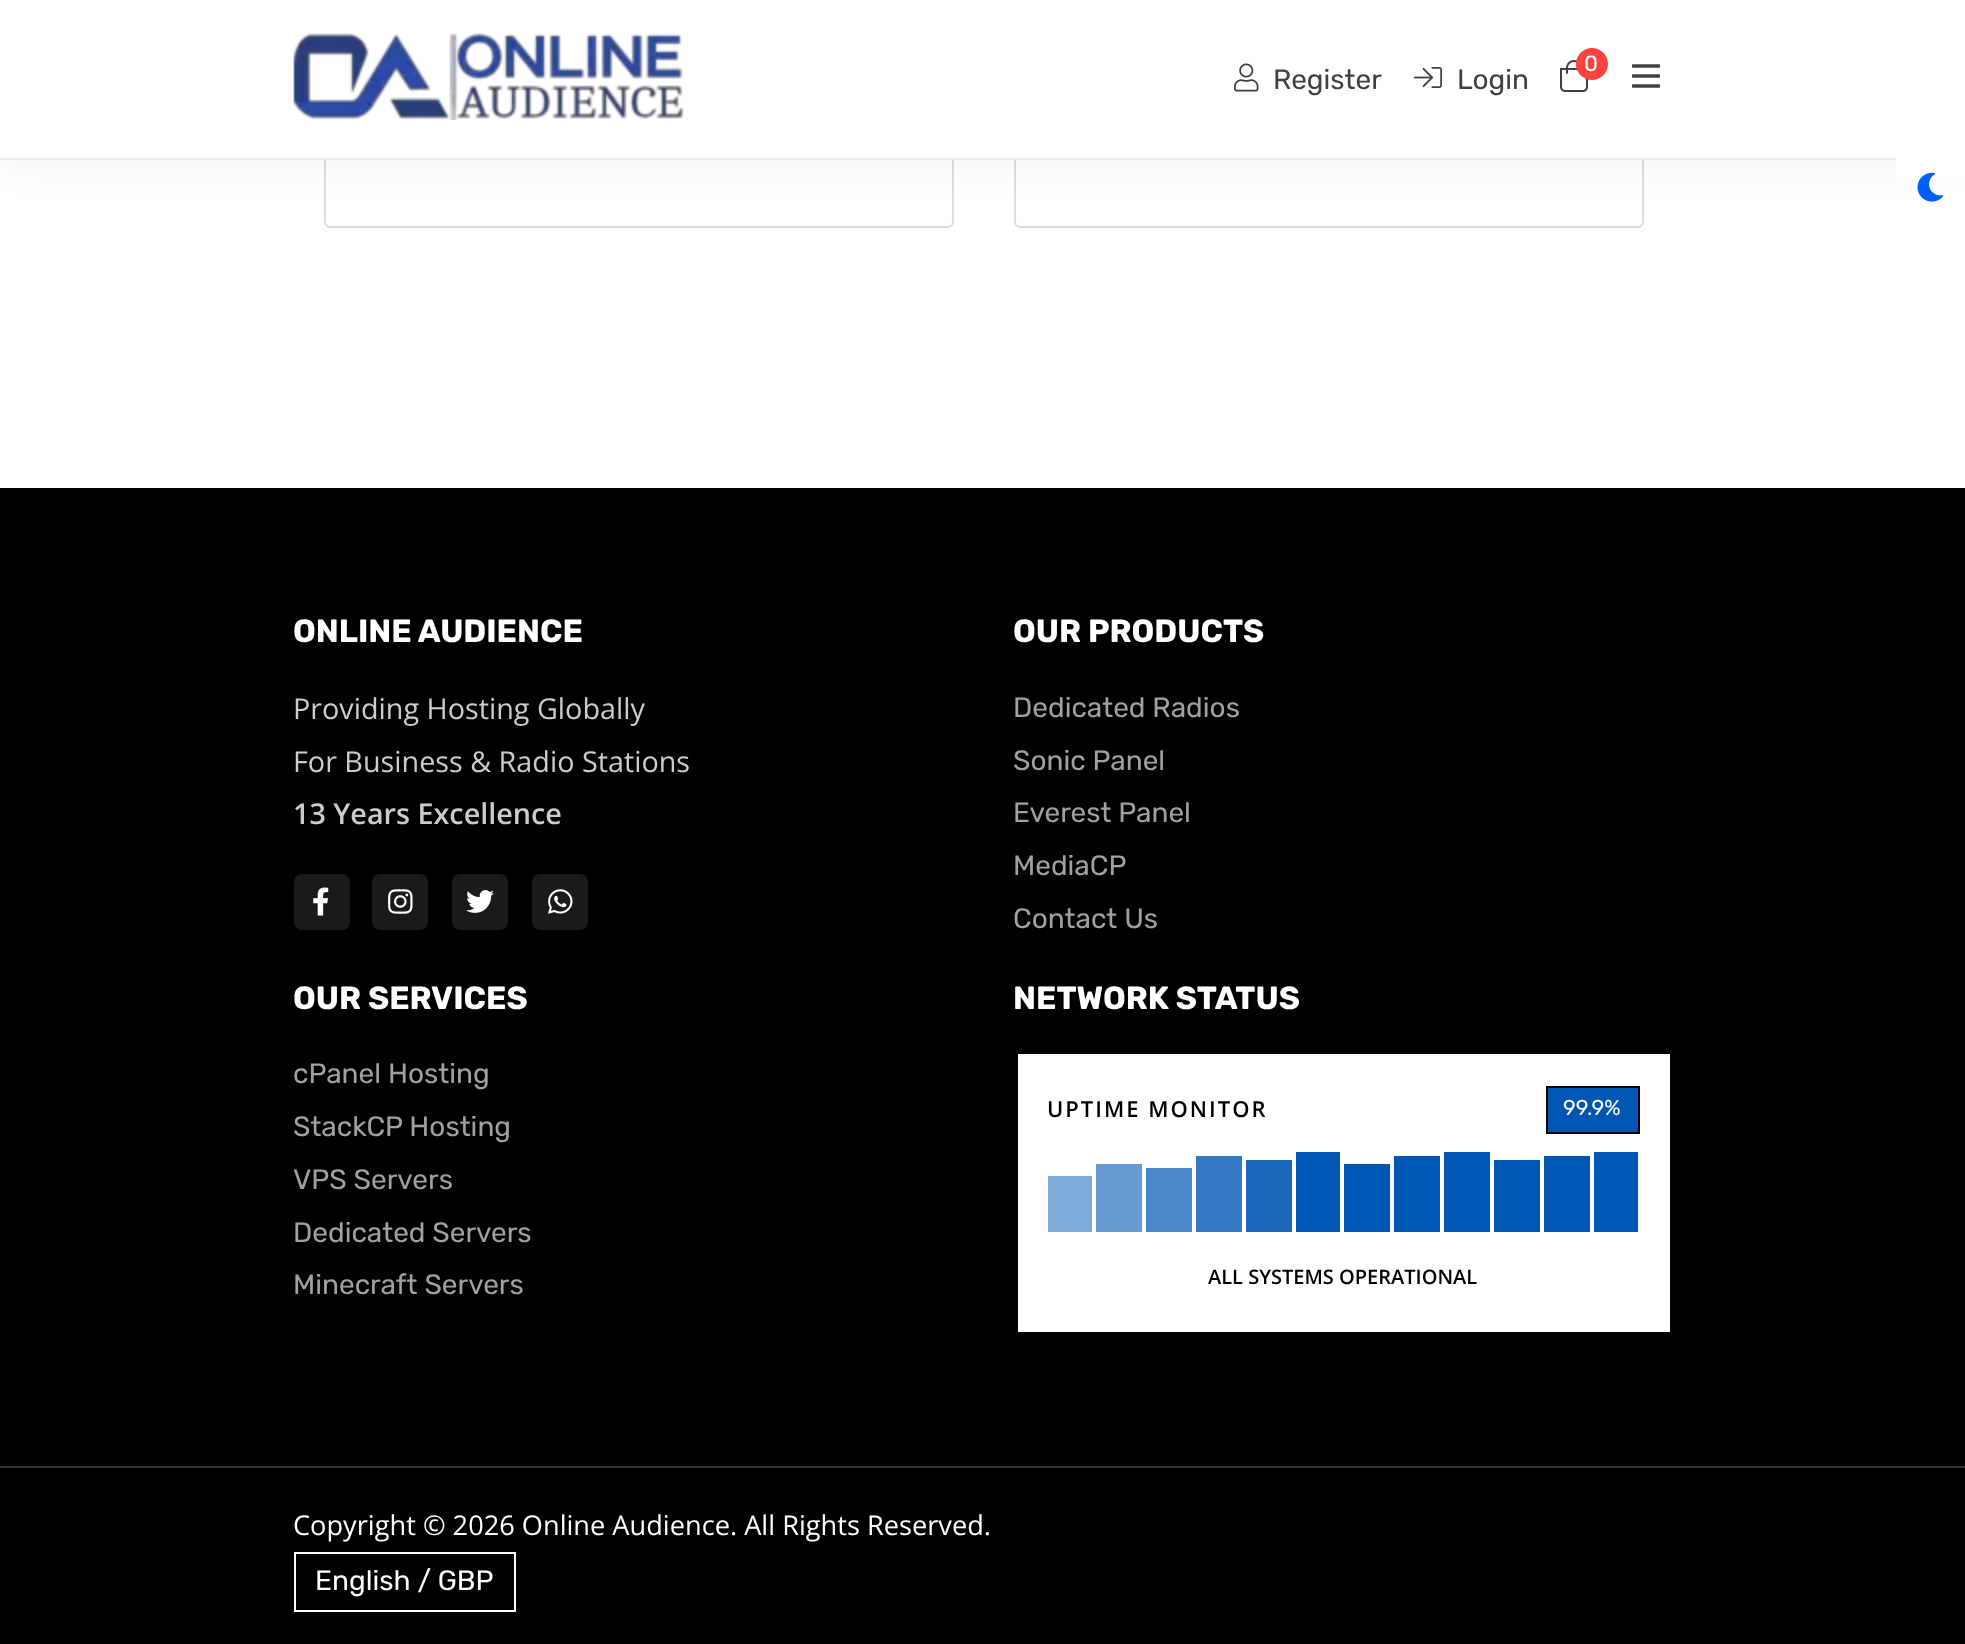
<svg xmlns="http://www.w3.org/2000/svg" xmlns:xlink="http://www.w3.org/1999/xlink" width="1965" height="1644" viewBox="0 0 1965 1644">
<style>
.cls-1{font:28px Rubik;fill:#404040}
.cls-2{font:22px Rubik;fill:#ffffff}
.cls-3{font:bold 32px Rubik;fill:#ffffff}
.cls-4{font:28.75px Open Sans;fill:#cccccc}
.cls-5{font:600 28.75px Open Sans;fill:#cccccc}
.cls-6{font:28px Rubik;fill:#a1a1a1}
.cls-7{font:600 22px Open Sans;letter-spacing:2px;fill:#000000}
.cls-8{font:21.5px Rubik;fill:#ffffff}
.cls-9{font:600 20px Open Sans;fill:#000000}
.cls-10{font:27.2px Open Sans;fill:#ffffff}
.cls-11{font:28px Rubik;fill:#ffffff}
</style>
<rect width="100%" height="100%" fill="#ffffff"/>
<rect fill="none" stroke="#dddddd" stroke-width="2" x="325" y="-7" width="628" height="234" rx="5"/>
<rect fill="none" stroke="#dddddd" stroke-width="2" x="1015" y="-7" width="628" height="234" rx="5"/>
<rect fill="#000000" fill-opacity="0.06" filter="blur(20px)" x="4" y="0" width="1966" height="160"/>
<rect fill="#ffffff" x="0" y="0" width="1965" height="158"/>
<rect fill="#e9eaec" x="0" y="158" width="1896" height="2"/>
<image xlink:href="image0.png" x="293" y="33" width="391" height="87"/>
<image xlink:href="image1.png" x="1234" y="63" width="25" height="29"/>
<image xlink:href="image2.png" x="1414" y="67" width="28" height="21"/>
<image xlink:href="image3.png" x="1560" y="60" width="28" height="32"/>
<circle fill="#ff423f" cx="1592" cy="64" r="16"/>
<image xlink:href="image4.png" x="1632" y="64" width="28" height="24"/>
<rect fill="#ffffff" x="1896" y="158" width="69" height="21"/>
<image xlink:href="image5.png" x="1917" y="172" width="27" height="30"/>
<rect fill="#000000" x="0" y="488" width="1965" height="1156"/>
<rect fill="#1a1a1a" x="294" y="874" width="56" height="56" rx="8"/>
<image xlink:href="image6.png" x="313" y="887" width="16" height="29"/>
<rect fill="#1a1a1a" x="372" y="874" width="56" height="56" rx="8"/>
<image xlink:href="image7.png" x="388" y="889" width="25" height="25"/>
<rect fill="#1a1a1a" x="452" y="874" width="56" height="56" rx="8"/>
<image xlink:href="image8.png" x="466" y="890" width="28" height="23"/>
<rect fill="#1a1a1a" x="532" y="874" width="56" height="56" rx="8"/>
<image xlink:href="image9.png" x="548" y="889" width="25" height="25"/>
<rect fill="#ffffff" x="1018" y="1054" width="652" height="278"/>
<rect fill="#0056b3" stroke="#000000" stroke-width="2" x="1547" y="1087" width="92" height="46"/>
<rect fill="#80abd9" x="1048" y="1176" width="44" height="56"/>
<rect fill="#669ad1" x="1096" y="1164" width="46" height="68"/>
<rect fill="#4d89ca" x="1146" y="1168" width="46" height="64"/>
<rect fill="#3378c2" x="1196" y="1156" width="46" height="76"/>
<rect fill="#1a67bb" x="1246" y="1160" width="46" height="72"/>
<rect fill="#0056b3" x="1296" y="1152" width="44" height="80"/>
<rect fill="#0056b3" x="1344" y="1164" width="46" height="68"/>
<rect fill="#0056b3" x="1394" y="1156" width="46" height="76"/>
<rect fill="#0056b3" x="1444" y="1152" width="46" height="80"/>
<rect fill="#0056b3" x="1494" y="1160" width="46" height="72"/>
<rect fill="#0056b3" x="1544" y="1156" width="46" height="76"/>
<rect fill="#0056b3" x="1594" y="1152" width="44" height="80"/>
<rect fill="#333333" x="0" y="1466" width="1965" height="2"/>
<rect fill="none" stroke="#ffffff" stroke-width="2" x="295" y="1553" width="220" height="58"/>
<text class="cls-1" x="1273" y="89">Register</text>
<text class="cls-1" x="1457" y="89">Login</text>
<text class="cls-2" x="1584" y="71">0</text>
<text class="cls-3" x="293" y="642">ONLINE AUDIENCE</text>
<text class="cls-4"><tspan x="293" y="719">Providing Hosting Globally</tspan><tspan x="293" y="772">For Business &amp; Radio Stations</tspan></text>
<text class="cls-5" x="293" y="824">13 Years Excellence</text>
<text class="cls-3" x="1013" y="642">OUR PRODUCTS</text>
<text class="cls-6"><tspan x="1013" y="717">Dedicated Radios</tspan><tspan x="1013" y="770">Sonic Panel</tspan><tspan x="1013" y="822">Everest Panel</tspan><tspan x="1013" y="875">MediaCP</tspan><tspan x="1013" y="928">Contact Us</tspan></text>
<text class="cls-3" x="293" y="1009">OUR SERVICES</text>
<text class="cls-6"><tspan x="293" y="1083">cPanel Hosting</tspan><tspan x="293" y="1136">StackCP Hosting</tspan><tspan x="293" y="1189">VPS Servers</tspan><tspan x="293" y="1242">Dedicated Servers</tspan><tspan x="293" y="1294">Minecraft Servers</tspan></text>
<text class="cls-3" x="1013" y="1009">NETWORK STATUS</text>
<text class="cls-7" x="1047" y="1117">UPTIME MONITOR</text>
<text class="cls-8" x="1563" y="1115">99.9%</text>
<text class="cls-9" x="1208" y="1284">ALL SYSTEMS OPERATIONAL</text>
<text class="cls-10" x="293" y="1535">Copyright © 2026 Online Audience. All Rights Reserved.</text>
<text class="cls-11" x="315" y="1590">English / GBP</text>
</svg>
